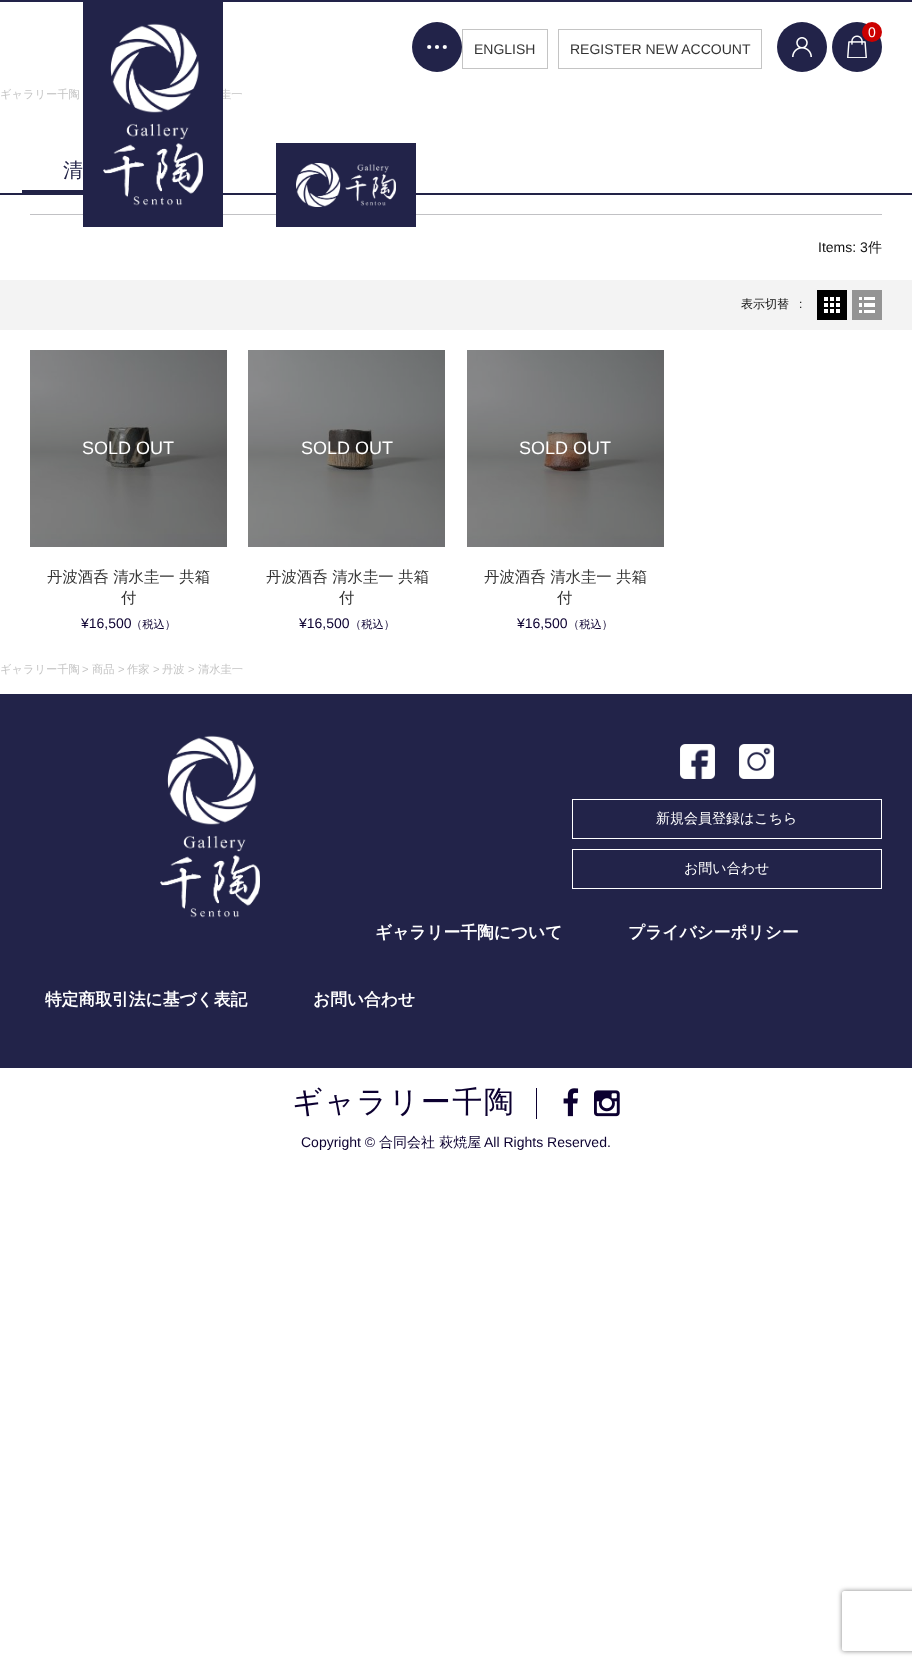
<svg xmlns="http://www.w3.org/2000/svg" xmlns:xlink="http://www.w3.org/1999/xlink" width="912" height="1665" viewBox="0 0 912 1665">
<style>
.cls-1{font:14px Liberation Sans;fill:#ffffff}
.cls-2{font:14px Liberation Sans;fill:#333333}
.cls-3{font:500 11.25px WenQuanYi Zen Hei;fill:#c4c4c4}
.cls-4{font:500 20px WenQuanYi Zen Hei;letter-spacing:1px;fill:#222347}
.cls-5{font:14px Liberation Sans;fill:#111111}
.cls-6{font:500 14px WenQuanYi Zen Hei;fill:#111111}
.cls-7{font:500 12px WenQuanYi Zen Hei;fill:#111111}
.cls-8{font:12px Liberation Sans;fill:#111111}
.cls-9{font:18px Liberation Sans;fill:#ffffff}
.cls-10{font:500 15.4px WenQuanYi Zen Hei;fill:#333333}
.cls-11{font:14px Liberation Sans;fill:#0c0030}
.cls-12{font:500 11.25px WenQuanYi Zen Hei;fill:#0c0030}
.cls-13{font:11.25px Liberation Sans;fill:#c4c4c4}
.cls-14{font:500 14px WenQuanYi Zen Hei;fill:#ffffff}
.cls-15{font:bold 16.75px WenQuanYi Zen Hei;fill:#ffffff}
.cls-16{font:500 30px WenQuanYi Zen Hei;letter-spacing:1.5px;fill:#0c0030}
.cls-17{font:500 14px WenQuanYi Zen Hei;fill:#0c0030}
</style>
<defs>
<clipPath id="clip1"><path d="M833 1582H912V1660H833ZM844 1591H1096C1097 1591 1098 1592 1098 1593V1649C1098 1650 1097 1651 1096 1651H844C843 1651 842 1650 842 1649V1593C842 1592 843 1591 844 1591Z" clip-rule="evenodd"/></clipPath>
</defs>
<rect width="100%" height="100%" fill="#ffffff"/>
<rect fill="#222349" x="0" y="0" width="912" height="2"/>
<rect fill="#222347" x="0" y="193" width="912" height="2"/>
<rect fill="#c1c1c4" x="30" y="214" width="852" height="1"/>
<rect fill="#222349" x="276" y="143" width="140" height="84"/>
<image xlink:href="image1.png" x="296" y="163" width="100" height="44"/>
<circle fill="#222349" cx="437" cy="47" r="25"/>
<circle fill="#ffffff" cx="429.2" cy="47" r="2.1"/>
<circle fill="#ffffff" cx="437" cy="47" r="2.1"/>
<circle fill="#ffffff" cx="444.8" cy="47" r="2.1"/>
<circle fill="#222349" cx="802" cy="47" r="25"/>
<image xlink:href="image2.png" x="792" y="37" width="20" height="20"/>
<circle fill="#222349" cx="857" cy="47" r="25"/>
<image xlink:href="image3.png" x="847" y="35" width="20" height="23"/>
<circle fill="#cc0000" cx="872" cy="32" r="10"/>
<rect fill="none" stroke="#c4c4c4" x="462.5" y="29.5" width="85" height="39"/>
<rect fill="none" stroke="#c4c4c4" x="558.5" y="29.5" width="203" height="39"/>
<rect fill="#222347" x="22" y="190" width="61" height="3"/>
<rect fill="#f3f3f3" x="0" y="280" width="912" height="50"/>
<rect fill="#000000" x="817" y="290" width="30" height="30"/>
<image xlink:href="image4.png" x="824" y="297" width="16" height="16"/>
<rect fill="#949494" x="852" y="290" width="30" height="30"/>
<image xlink:href="image5.png" x="859" y="297" width="16" height="16"/>
<image xlink:href="image6.png" x="30" y="350" width="197" height="197"/>
<image xlink:href="image7.png" x="248" y="350" width="197" height="197"/>
<image xlink:href="image8.png" x="467" y="350" width="197" height="197"/>
<rect fill="#222349" x="0" y="694" width="912" height="374"/>
<image xlink:href="image9.png" x="160" y="735" width="100" height="183"/>
<image xlink:href="image10.png" x="680" y="744" width="35" height="35"/>
<image xlink:href="image11.png" x="739" y="744" width="35" height="35"/>
<rect fill="none" stroke="#ffffff" x="572.5" y="799.5" width="309" height="39"/>
<rect fill="none" stroke="#ffffff" x="572.5" y="849.5" width="309" height="39"/>
<rect fill="#0c0030" x="536" y="1088" width="1" height="31"/>
<image xlink:href="image12.png" x="563" y="1088" width="16" height="29"/>
<image xlink:href="image13.png" x="594" y="1090" width="26" height="27"/>
<g clip-path="url(#clip1)">
<rect fill="#808080" filter="blur(2.5px)" x="842" y="1591" width="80" height="60" rx="2"/>
</g>
<text class="cls-1" x="868" y="37">0</text>
<text class="cls-2" x="474" y="54">ENGLISH</text>
<text class="cls-2" x="570" y="54">REGISTER NEW ACCOUNT</text>
<text class="cls-3" x="0" y="98">ギャラリー千陶</text>
<text class="cls-3" x="220" y="98">圭一</text>
<rect fill="#222349" x="83" y="2" width="140" height="225"/>
<image xlink:href="image0.png" x="103" y="23" width="100" height="183"/>
<text class="cls-4" x="63" y="177">清</text>
<text class="cls-5" x="818" y="252">Items: 3</text>
<text class="cls-6" x="868" y="252">件</text>
<text class="cls-7" x="741" y="308">表示切替</text>
<text class="cls-8" x="799" y="308">:</text>
<text class="cls-9" x="82" y="454">SOLD OUT</text>
<text class="cls-10" x="47" y="582">丹波酒呑 清水圭一 共箱</text>
<text class="cls-10" x="121" y="603">付</text>
<text class="cls-11" x="81" y="628">¥16,500</text>
<text class="cls-12" x="131" y="628">（税込）</text>
<text class="cls-9" x="301" y="454">SOLD OUT</text>
<text class="cls-10" x="266" y="582">丹波酒呑 清水圭一 共箱</text>
<text class="cls-10" x="339" y="603">付</text>
<text class="cls-11" x="299" y="628">¥16,500</text>
<text class="cls-12" x="350" y="628">（税込）</text>
<text class="cls-9" x="519" y="454">SOLD OUT</text>
<text class="cls-10" x="484" y="582">丹波酒呑 清水圭一 共箱</text>
<text class="cls-10" x="557" y="603">付</text>
<text class="cls-11" x="517" y="628">¥16,500</text>
<text class="cls-12" x="568" y="628">（税込）</text>
<text class="cls-3" x="0" y="673">ギャラリー千陶</text>
<text class="cls-13" x="82" y="673">&gt;</text>
<text class="cls-3" x="92" y="673">商品</text>
<text class="cls-13" x="118" y="673">&gt;</text>
<text class="cls-3" x="127" y="673">作家</text>
<text class="cls-13" x="153" y="673">&gt;</text>
<text class="cls-3" x="162" y="673">丹波</text>
<text class="cls-13" x="188" y="673">&gt;</text>
<text class="cls-3" x="198" y="673">清水圭一</text>
<text class="cls-14" x="656" y="823">新規会員登録はこちら</text>
<text class="cls-14" x="684" y="873">お問い合わせ</text>
<text class="cls-15" x="375" y="938">ギャラリー千陶について</text>
<text class="cls-15" x="628" y="938">プライバシーポリシー</text>
<text class="cls-15" x="45" y="1005">特定商取引法に基づく表記</text>
<text class="cls-15" x="313" y="1005">お問い合わせ</text>
<text class="cls-16" x="292" y="1112">ギャラリー千陶</text>
<text class="cls-11" x="301" y="1147">Copyright ©</text>
<text class="cls-17" x="379" y="1147">合同会社 萩焼屋</text>
<text class="cls-11" x="484" y="1147">All Rights Reserved.</text>
</svg>
